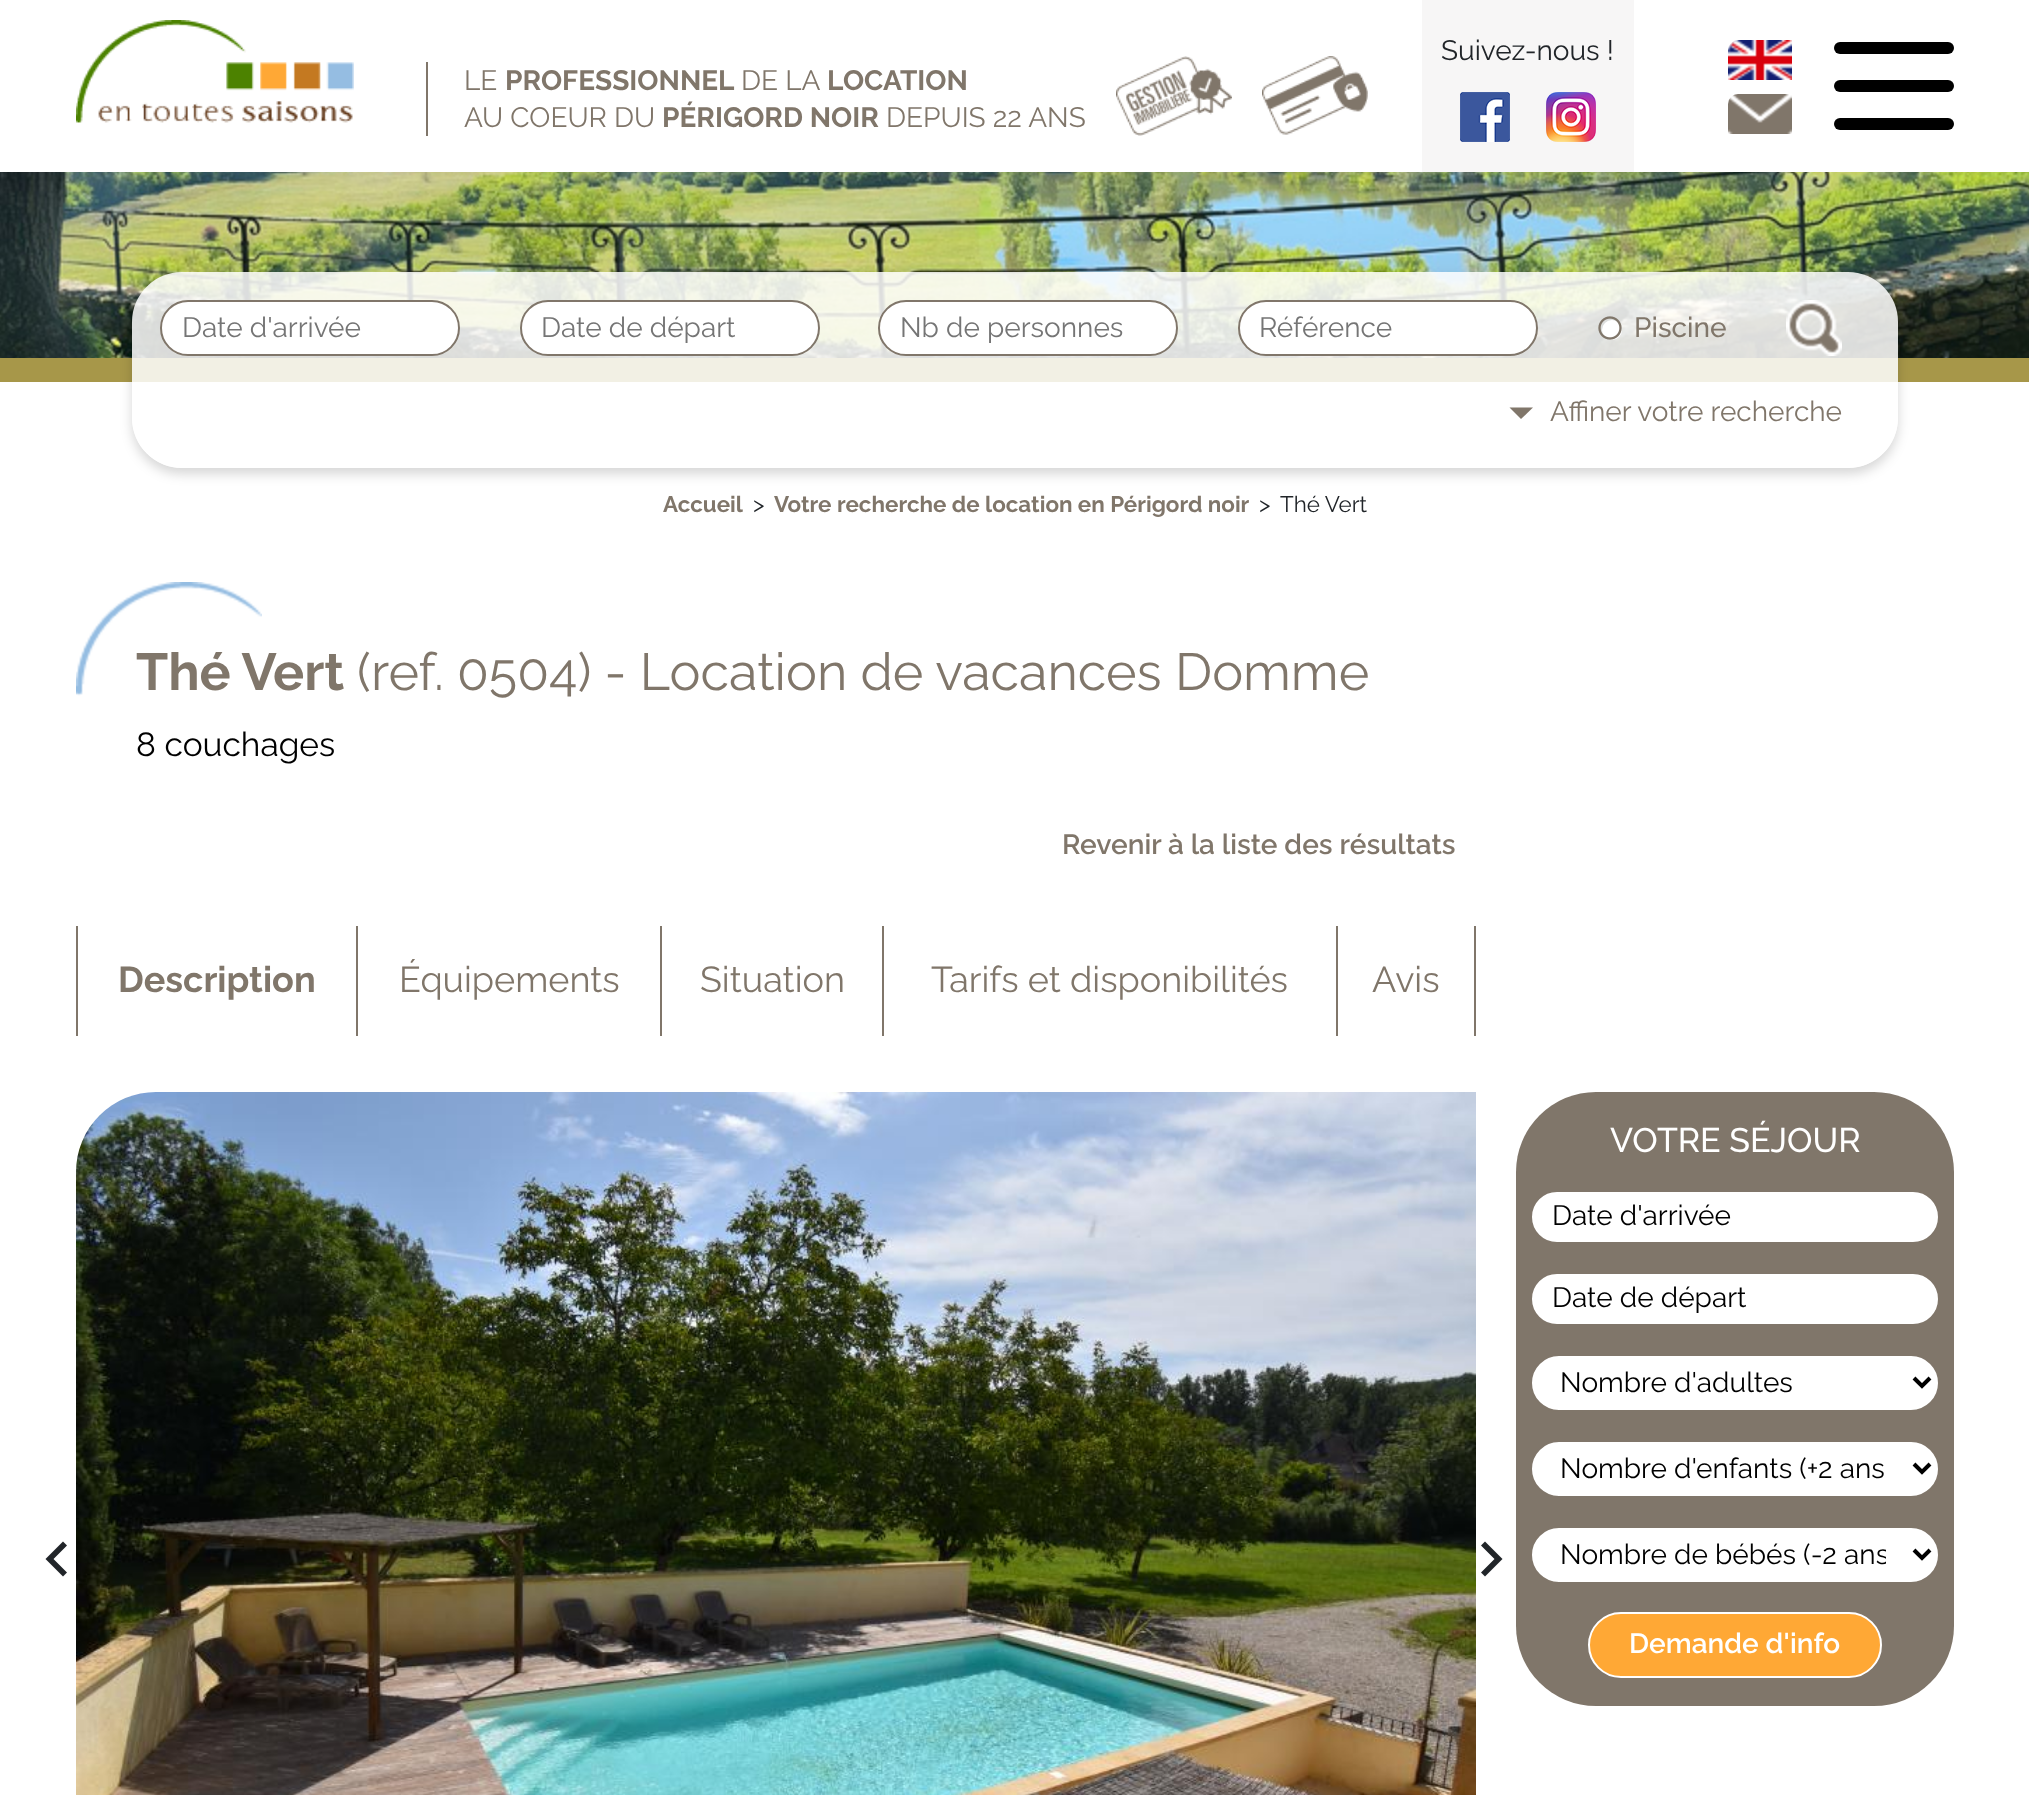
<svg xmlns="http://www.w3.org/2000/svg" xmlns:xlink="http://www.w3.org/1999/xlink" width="2029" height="1795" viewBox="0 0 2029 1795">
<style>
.cls-1{font:28px Raleway;fill:#212529}
.cls-2{font:28px Raleway;fill:#80766a}
.cls-3{font:bold 28px Raleway;fill:#80766a}
.cls-4{font:28px Raleway;fill:#757575}
.cls-5{font:500 28px Raleway;fill:#80766a}
.cls-6{font:bold 22.4px Raleway;fill:#80766a}
.cls-7{font:22.4px Raleway;fill:#212529}
.cls-8{font:52px Raleway;fill:#80766a}
.cls-9{font:bold 52px Raleway;fill:#80766a}
.cls-10{font:33.5px Raleway;fill:#000000}
.cls-11{font:600 28px Raleway;fill:#80766a}
.cls-12{font:bold 36px Raleway;fill:#80766a}
.cls-13{font:36px Raleway;fill:#80766a}
.cls-14{font:500 34px Raleway;fill:#ffffff}
.cls-15{font:28px Raleway;fill:#000000}
.cls-16{font:600 28px Raleway;fill:#ffffff}
</style>
<defs>
<clipPath id="clip1"><path d="M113 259H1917V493H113ZM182 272H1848C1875.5 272 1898 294.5 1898 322V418C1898 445.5 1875.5 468 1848 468H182C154.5 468 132 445.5 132 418V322C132 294.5 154.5 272 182 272Z" clip-rule="evenodd"/></clipPath>
<clipPath id="clip2"><rect x="1560" y="1536" width="326" height="36"/></clipPath>
</defs>
<rect width="100%" height="100%" fill="#ffffff"/>
<image xlink:href="image0.png" x="76" y="20" width="278" height="103"/>
<rect fill="#f7f6f6" x="1422" y="0" width="212" height="172"/>
<image xlink:href="image1.png" x="1460" y="92" width="50" height="50"/>
<image xlink:href="image2.png" x="1546" y="92" width="50" height="50"/>
<rect fill="#80766a" x="426" y="62" width="2" height="74"/>
<image xlink:href="image3.png" x="1116" y="56" width="116" height="80"/>
<image xlink:href="image4.png" x="1262" y="56" width="106" height="79"/>
<image xlink:href="image5.png" x="1728" y="40" width="64" height="40"/>
<image xlink:href="image6.png" x="1728" y="94" width="64" height="40"/>
<rect fill="#000000" x="1834" y="42" width="120" height="12" rx="6"/>
<rect fill="#000000" x="1834" y="80" width="120" height="12" rx="6"/>
<rect fill="#000000" x="1834" y="118" width="120" height="12" rx="6"/>
<image xlink:href="image7.png" x="0" y="172" width="2029" height="186"/>
<rect fill="#a79749" x="0" y="358" width="2029" height="24"/>
<g clip-path="url(#clip1)">
<rect fill="#000000" fill-opacity="0.16" filter="blur(6px)" x="132" y="278" width="1766" height="196" rx="50"/>
</g>
<rect fill="#ffffff" fill-opacity="0.85" x="132" y="272" width="1766" height="196" rx="50"/>
<rect fill="#ffffff" stroke="#80766a" stroke-width="2" x="161" y="301" width="298" height="54" rx="27"/>
<rect fill="#ffffff" stroke="#80766a" stroke-width="2" x="521" y="301" width="298" height="54" rx="27"/>
<rect fill="#ffffff" stroke="#80766a" stroke-width="2" x="879" y="301" width="298" height="54" rx="27"/>
<rect fill="#ffffff" stroke="#80766a" stroke-width="2" x="1239" y="301" width="298" height="54" rx="27"/>
<circle fill="#ffffff" cx="1612" cy="330" r="10"/>
<image xlink:href="image8.png" x="1598" y="316" width="24" height="24"/>
<image xlink:href="image9.png" x="1786" y="300" width="56" height="56"/>
<path fill="#80766a" d="M1533 407.5L1521 419L1509.5 407.5Z"/>
<rect fill="#80766a" x="76" y="926" width="2" height="110"/>
<rect fill="#80766a" x="356" y="926" width="2" height="110"/>
<rect fill="#80766a" x="660" y="926" width="2" height="110"/>
<rect fill="#80766a" x="882" y="926" width="2" height="110"/>
<rect fill="#80766a" x="1336" y="926" width="2" height="110"/>
<rect fill="#80766a" x="1474" y="926" width="2" height="110"/>
<path fill="#212529" d="M67 1545.5L53.5 1559L67 1572.5L63 1576.5L45.5 1559L63 1541.5Z"/>
<image xlink:href="image11.png" x="76" y="1092" width="1400" height="703"/>
<path fill="#212529" d="M1485 1541.5L1502.5 1559L1485 1576.5L1481 1572.5L1494.5 1559L1481 1545.5Z"/>
<rect fill="#80766a" x="1516" y="1092" width="438" height="614" rx="80"/>
<rect fill="#ffffff" stroke="#80766a" stroke-width="2" x="1531" y="1191" width="408" height="52" rx="26"/>
<rect fill="#ffffff" stroke="#80766a" stroke-width="2" x="1531" y="1273" width="408" height="52" rx="26"/>
<rect fill="#ffffff" stroke="#80766a" stroke-width="2" x="1531" y="1355" width="408" height="56" rx="28"/>
<path fill="none" stroke="#000000" stroke-width="4" d="M1914 1378L1922 1386L1930 1378"/>
<rect fill="#ffffff" stroke="#80766a" stroke-width="2" x="1531" y="1441" width="408" height="56" rx="28"/>
<path fill="none" stroke="#000000" stroke-width="4" d="M1914 1464L1922 1472L1930 1464"/>
<rect fill="#ffffff" stroke="#80766a" stroke-width="2" x="1531" y="1527" width="408" height="56" rx="28"/>
<path fill="none" stroke="#000000" stroke-width="4" d="M1914 1550L1922 1558L1930 1550"/>
<rect fill="#ffa835" stroke="#ffffff" stroke-width="2" x="1589" y="1613" width="292" height="64" rx="32"/>
<text class="cls-1" x="1441" y="60">Suivez-nous !</text>
<text class="cls-2" x="464" y="90">LE</text>
<text class="cls-3" x="505" y="90">PROFESSIONNEL</text>
<text class="cls-2" x="741" y="90">DE LA</text>
<text class="cls-3" x="827" y="90">LOCATION</text>
<text class="cls-2" x="464" y="127">AU COEUR DU</text>
<text class="cls-3" x="662" y="127">PÉRIGORD NOIR</text>
<text class="cls-2" x="886" y="127">DEPUIS 22 ANS</text>
<text class="cls-4" x="182" y="337">Date d'arrivée</text>
<text class="cls-4" x="541" y="337">Date de départ</text>
<text class="cls-4" x="900" y="337">Nb de personnes</text>
<text class="cls-4" x="1259" y="337">Référence</text>
<text class="cls-5" x="1634" y="337">Piscine</text>
<text class="cls-2" x="1550" y="421">Affiner votre recherche</text>
<text class="cls-6" x="663" y="512">Accueil</text>
<text class="cls-7" x="753" y="512">&gt;</text>
<text class="cls-6" x="774" y="512">Votre recherche de location en Périgord noir</text>
<text class="cls-7" x="1259" y="512">&gt;</text>
<text class="cls-7" x="1280" y="512">Thé Vert</text>
<text class="cls-8" x="357" y="690">(ref. 0504) - Location de vacances Domme</text>
<text class="cls-9" x="136" y="690">Thé Vert</text>
<image xlink:href="image10.png" x="76" y="582" width="186" height="114"/>
<text class="cls-10" x="136" y="756">8 couchages</text>
<text class="cls-11" x="1062" y="854">Revenir à la liste des résultats</text>
<text class="cls-12" x="118" y="992">Description</text>
<text class="cls-13" x="399" y="992">Équipements</text>
<text class="cls-13" x="700" y="992">Situation</text>
<text class="cls-13" x="931" y="992">Tarifs et disponibilités</text>
<text class="cls-13" x="1372" y="992">Avis</text>
<text class="cls-14" x="1610" y="1152">VOTRE SÉJOUR</text>
<text class="cls-15" x="1552" y="1225">Date d'arrivée</text>
<text class="cls-15" x="1552" y="1307">Date de départ</text>
<text class="cls-15" x="1560" y="1392">Nombre d'adultes</text>
<text class="cls-15" x="1560" y="1478">Nombre d'enfants (+2 ans</text>
<g clip-path="url(#clip2)">
<text class="cls-15" x="1560" y="1564">Nombre de bébés (-2 ans</text>
</g>
<text class="cls-16" x="1629" y="1653">Demande d'info</text>
</svg>
